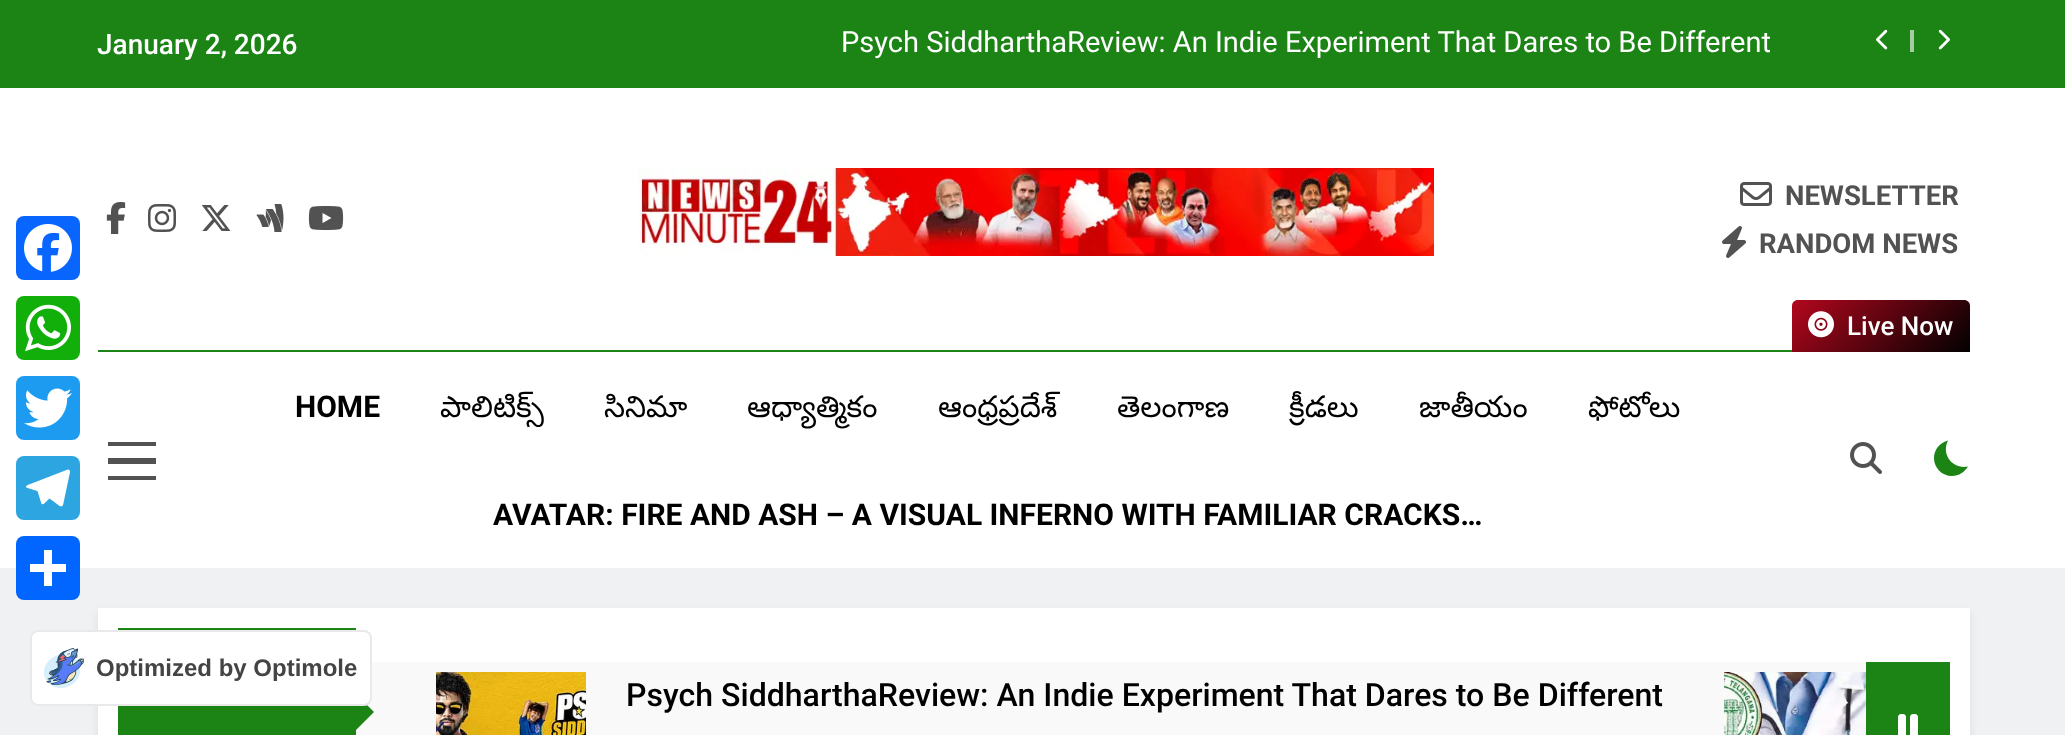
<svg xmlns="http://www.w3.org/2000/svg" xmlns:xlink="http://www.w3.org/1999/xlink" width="2065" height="735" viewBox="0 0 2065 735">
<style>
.cls-1{font:500 28px Roboto;fill:#ffffff}
.cls-2{font:29.05px Roboto;fill:#ffffff}
.cls-3{font:bold 27.5px Roboto;fill:#525252}
.cls-4{font:500 26px Roboto;fill:#ffffff}
.cls-5{font:bold 30px Roboto;fill:#000000}
.cls-6{font:30px Noto Sans Telugu;fill:#000000}
.cls-7{font:500 32.1px Roboto;fill:#000000}
.cls-8{font:bold 24px Liberation Sans;fill:#444444}
</style>
<defs>
<linearGradient id="g1" gradientUnits="userSpaceOnUse" x1="1824" y1="269" x2="1939" y2="384"><stop offset="0" stop-color="#b2071d"/><stop offset="1" stop-color="#010101"/></linearGradient>
</defs>
<rect width="100%" height="100%" fill="#f0f1f2"/>
<rect fill="#ffffff" x="0" y="88" width="2065" height="480"/>
<rect fill="#0866ff" x="16" y="216" width="64" height="64" rx="8"/>
<image xlink:href="image0.png" x="24" y="224" width="48" height="48"/>
<rect fill="#12af0a" x="16" y="296" width="64" height="64" rx="8"/>
<image xlink:href="image1.png" x="25" y="304" width="46" height="48"/>
<rect fill="#1d9bf0" x="16" y="376" width="64" height="64" rx="8"/>
<image xlink:href="image2.png" x="24" y="388" width="48" height="40"/>
<rect fill="#2ca5e0" x="16" y="456" width="64" height="64" rx="8"/>
<image xlink:href="image3.png" x="26" y="469" width="44" height="38"/>
<rect fill="#0166ff" x="16" y="536" width="64" height="64" rx="8"/>
<rect fill="#ffffff" x="44" y="550" width="8" height="36"/>
<rect fill="#ffffff" x="30" y="564" width="36" height="8"/>
<rect fill="#1b8415" x="0" y="0" width="2065" height="88"/>
<image xlink:href="image4.png" x="1876" y="29" width="12" height="21"/>
<rect fill="#a4cea1" x="1910" y="30" width="4" height="22"/>
<image xlink:href="image5.png" x="1938" y="29" width="12" height="21"/>
<image xlink:href="image6.png" x="106" y="202" width="20" height="32"/>
<image xlink:href="image7.png" x="148" y="204" width="28" height="28"/>
<image xlink:href="image8.png" x="201" y="205" width="30" height="26"/>
<image xlink:href="image9.png" x="256" y="204" width="28" height="28"/>
<image xlink:href="image10.png" x="308" y="206" width="36" height="24"/>
<image xlink:href="image11.png" x="637" y="168" width="797" height="88"/>
<image xlink:href="image12.png" x="1740" y="182" width="32" height="24"/>
<image xlink:href="image13.png" x="1722" y="226" width="24" height="32"/>
<rect fill="#1b8415" x="98" y="350" width="1694" height="2"/>
<path fill="url(#g1)" d="M1798 300H1964C1967.5 300 1970 302.5 1970 306V352H1792V306C1792 302.5 1794.5 300 1798 300Z"/>
<image xlink:href="image14.png" x="1808" y="311" width="26" height="27"/>
<rect fill="#525252" x="108" y="442" width="48" height="4"/>
<rect fill="#525252" x="108" y="458" width="48" height="6"/>
<rect fill="#525252" x="108" y="476" width="48" height="4"/>
<image xlink:href="image15.png" x="1850" y="442" width="32" height="32"/>
<path fill="#1b8415" d="M1968 466.5C1952.5 469.5 1941 454.5 1948 440.5C1940 442.5 1934 449.5 1934 458C1934 468 1942 476 1952 476C1959 476 1964.5 472 1968 466.5Z"/>
<rect fill="#000000" fill-opacity="0.08" filter="blur(4px)" x="98" y="612" width="1872" height="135"/>
<rect fill="#ffffff" x="98" y="608" width="1872" height="127"/>
<rect fill="#1b8415" x="118" y="628" width="238" height="107"/>
<rect fill="#f9f9f9" x="356" y="662" width="1510" height="73"/>
<path fill="#1b8415" d="M354 732V692L374 712Z"/>
<image xlink:href="image16.png" x="436" y="672" width="150" height="63"/>
<image xlink:href="image17.png" x="1724" y="672" width="142" height="63"/>
<rect fill="#1b8415" x="1866" y="662" width="84" height="73"/>
<image xlink:href="image18.png" x="1898" y="714" width="20" height="21"/>
<rect fill="#ffffff" stroke="#e9e9e9" stroke-width="2" x="31" y="631" width="340" height="74" rx="7"/>
<image xlink:href="image19.png" x="44" y="648" width="40" height="40"/>
<text class="cls-1" x="97" y="54">January 2, 2026</text>
<text class="cls-2" x="841" y="52">Psych SiddharthaReview: An Indie Experiment That Dares to Be Different</text>
<text class="cls-3" x="1785" y="205">NEWSLETTER</text>
<text class="cls-3" x="1759" y="253">RANDOM NEWS</text>
<text class="cls-4" x="1847" y="335">Live Now</text>
<text class="cls-5" x="295" y="417">HOME</text>
<text class="cls-6" x="440" y="417">పాలిటిక్స్</text>
<text class="cls-6" x="604" y="417">సినిమా</text>
<text class="cls-6" x="747" y="417">ఆధ్యాత్మికం</text>
<text class="cls-6" x="938" y="417">ఆంధ్రప్రదేశ్</text>
<text class="cls-6" x="1117" y="417">తెలంగాణ</text>
<text class="cls-6" x="1289" y="417">క్రీడలు</text>
<text class="cls-6" x="1419" y="417">జాతీయం</text>
<text class="cls-6" x="1588" y="417">ఫోటోలు</text>
<text class="cls-5" x="493" y="525">AVATAR: FIRE AND ASH – A VISUAL INFERNO WITH FAMILIAR CRACKS…</text>
<text class="cls-7" x="626" y="706">Psych SiddharthaReview: An Indie Experiment That Dares to Be Different</text>
<text class="cls-8" x="96" y="676">Optimized by Optimole</text>
</svg>
